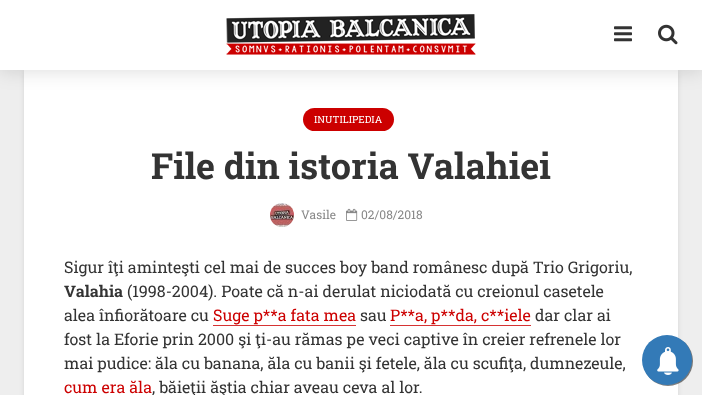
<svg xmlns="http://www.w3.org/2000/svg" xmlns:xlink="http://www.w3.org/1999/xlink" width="702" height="395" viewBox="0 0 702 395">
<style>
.cls-1{font:10px Roboto Slab;fill:#ffffff}
.cls-2{font:bold 36px Roboto Slab;fill:#333333}
.cls-3{font:12px Roboto Slab;fill:#888888}
.cls-4{font:16px Roboto Slab;fill:#333333}
.cls-5{font:bold 16px Roboto Slab;fill:#333333}
.cls-6{font:16px Roboto Slab;fill:#cc0000}
</style>
<rect width="100%" height="100%" fill="#eeeeee"/>
<rect fill="#000101" fill-opacity="0.1" filter="blur(2.5px)" x="24" y="71" width="654" height="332"/>
<rect fill="#ffffff" x="24" y="70" width="654" height="325"/>
<rect fill="#000000" fill-opacity="0.15" filter="blur(10px)" x="0" y="0" width="702" height="70"/>
<rect fill="#ffffff" x="0" y="0" width="702" height="70"/>
<image xlink:href="image0.png" x="226" y="14" width="250" height="41"/>
<image xlink:href="image1.png" x="614" y="26" width="18" height="16"/>
<image xlink:href="image2.png" x="658" y="24" width="20" height="21"/>
<rect fill="#cc0000" x="303" y="108" width="91" height="23" rx="11.5"/>
<image xlink:href="image3.png" x="270" y="203" width="24" height="24"/>
<image xlink:href="image4.png" x="346" y="208" width="12" height="13"/>
<rect fill="#d63333" x="213" y="325" width="143" height="1"/>
<rect fill="#d63333" x="390" y="325" width="141" height="1"/>
<rect fill="#000000" fill-opacity="0.5" filter="blur(0.5px)" x="643" y="336" width="50" height="50" rx="25"/>
<circle fill="#337ab7" cx="667" cy="360" r="25"/>
<image xlink:href="image5.png" x="657" y="347" width="22" height="28"/>
<text class="cls-1" x="314" y="123">INUTILIPEDIA</text>
<text class="cls-2" x="151" y="179">File din istoria Valahiei</text>
<text class="cls-3" x="301" y="219">Vasile</text>
<text class="cls-3" x="361" y="219">02/08/2018</text>
<text class="cls-4" x="64" y="273">Sigur îţi aminteşti cel mai de succes boy band românesc după Trio Grigoriu,</text>
<text class="cls-5" x="64" y="297">Valahia</text>
<text class="cls-4" x="127" y="297">(1998-2004). Poate că n-ai derulat niciodată cu creionul casetele</text>
<text class="cls-4" x="64" y="321">alea înfiorătoare cu</text>
<text class="cls-6" x="213" y="321">Suge p**a fata mea</text>
<text class="cls-4" x="360" y="321">sau</text>
<text class="cls-6" x="390" y="321">P**a, p**da, c**iele</text>
<text class="cls-4" x="535" y="321">dar clar ai</text>
<text class="cls-4"><tspan x="64" y="345">fost la Eforie prin 2000 şi ţi-au rămas pe veci captive în creier refrenele lor</tspan><tspan x="64" y="369">mai pudice: ăla cu banana, ăla cu banii şi fetele, ăla cu scufiţa, dumnezeule,</tspan></text>
<text class="cls-6" x="64" y="393">cum era ăla</text>
<text class="cls-4" x="152" y="393">, băieţii ăştia chiar aveau ceva al lor.</text>
</svg>
